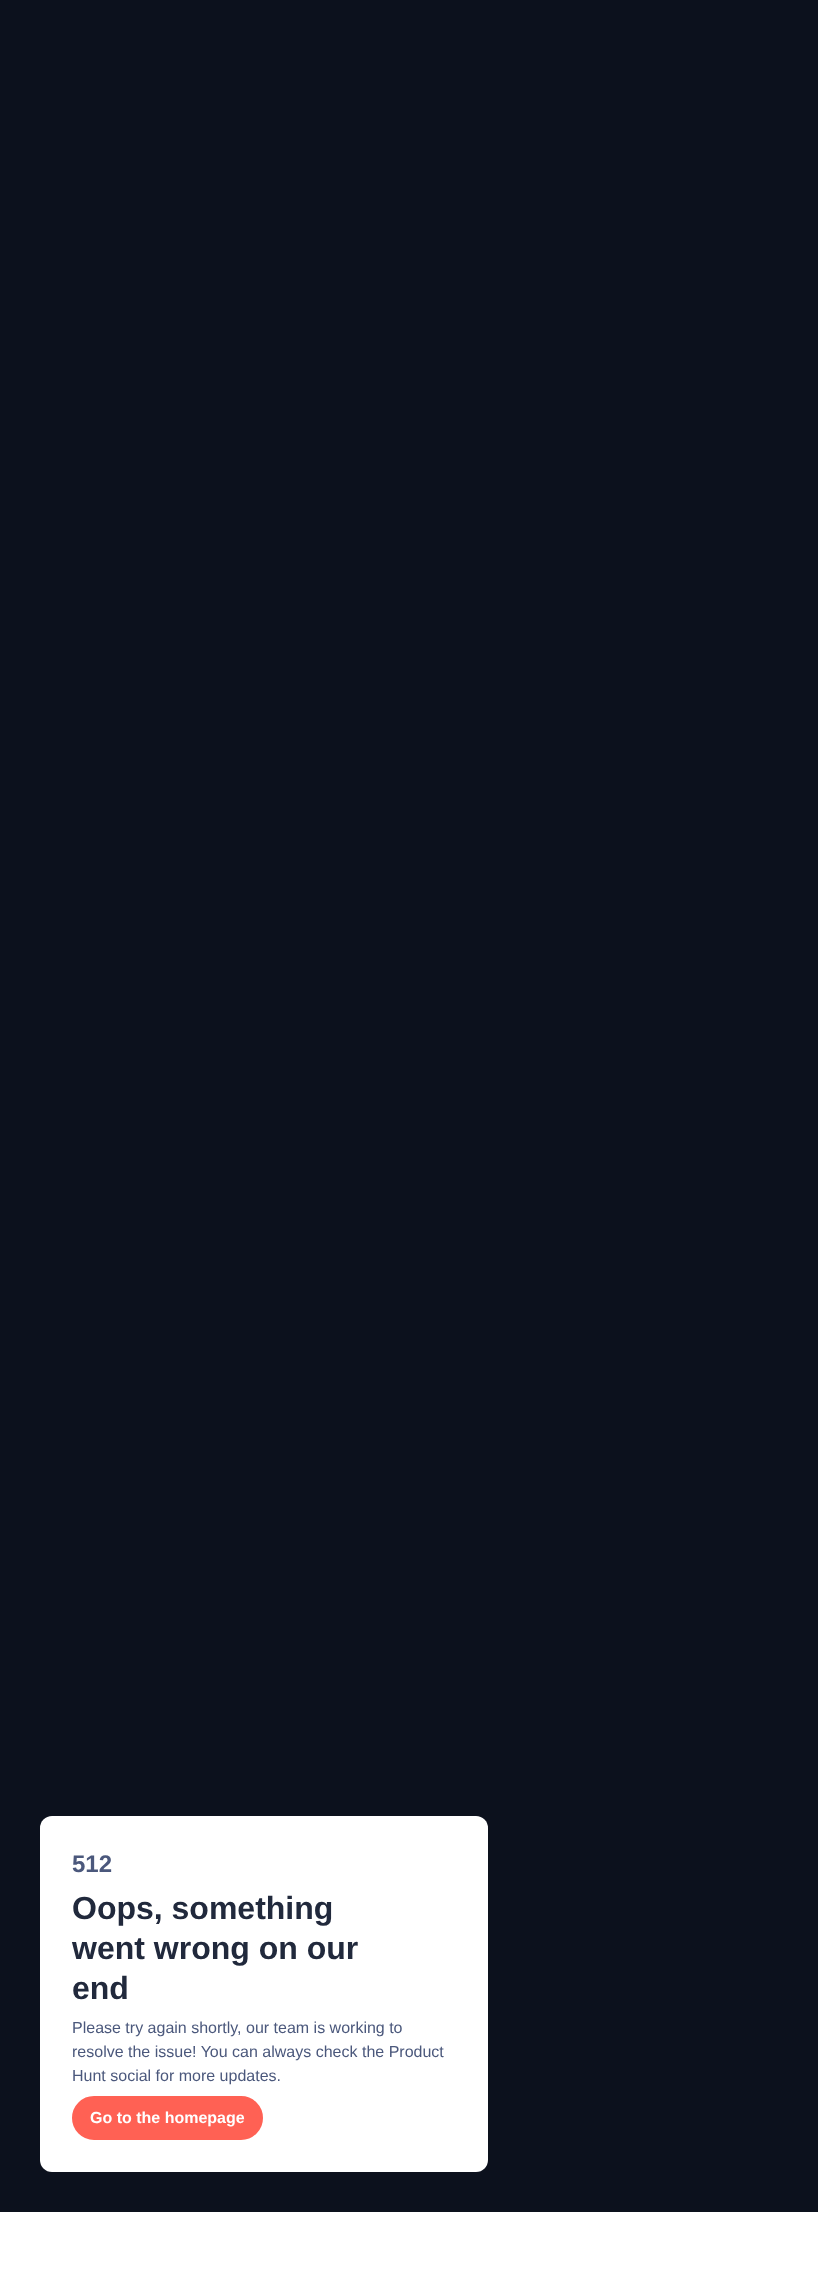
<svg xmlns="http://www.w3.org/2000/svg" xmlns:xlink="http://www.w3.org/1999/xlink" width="833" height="2296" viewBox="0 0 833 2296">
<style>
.cls-1{font:bold 24px Liberation Sans;fill:#4b587c}
.cls-2{font:bold 32px Liberation Sans;fill:#21293c}
.cls-3{font:16px Liberation Sans;fill:#4b587c}
.cls-4{font:bold 16px Liberation Sans;fill:#ffffff}
</style>
<rect width="100%" height="100%" fill="#ffffff"/>
<rect fill="#0c111d" x="0" y="0" width="818" height="2212"/>
<rect fill="#ffffff" x="40" y="1816" width="448" height="356" rx="12"/>
<rect fill="#ff6154" stroke="#ff6154" stroke-width="2" x="73" y="2097" width="189" height="42" rx="21"/>
<text class="cls-1" x="72" y="1872">512</text>
<text class="cls-2"><tspan x="72" y="1919">Oops, something</tspan><tspan x="72" y="1959">went wrong on our</tspan><tspan x="72" y="1999">end</tspan></text>
<text class="cls-3"><tspan x="72" y="2033">Please try again shortly, our team is working to</tspan><tspan x="72" y="2057">resolve the issue! You can always check the Product</tspan><tspan x="72" y="2081">Hunt social for more updates.</tspan></text>
<text class="cls-4" x="90" y="2123">Go to the homepage</text>
</svg>
